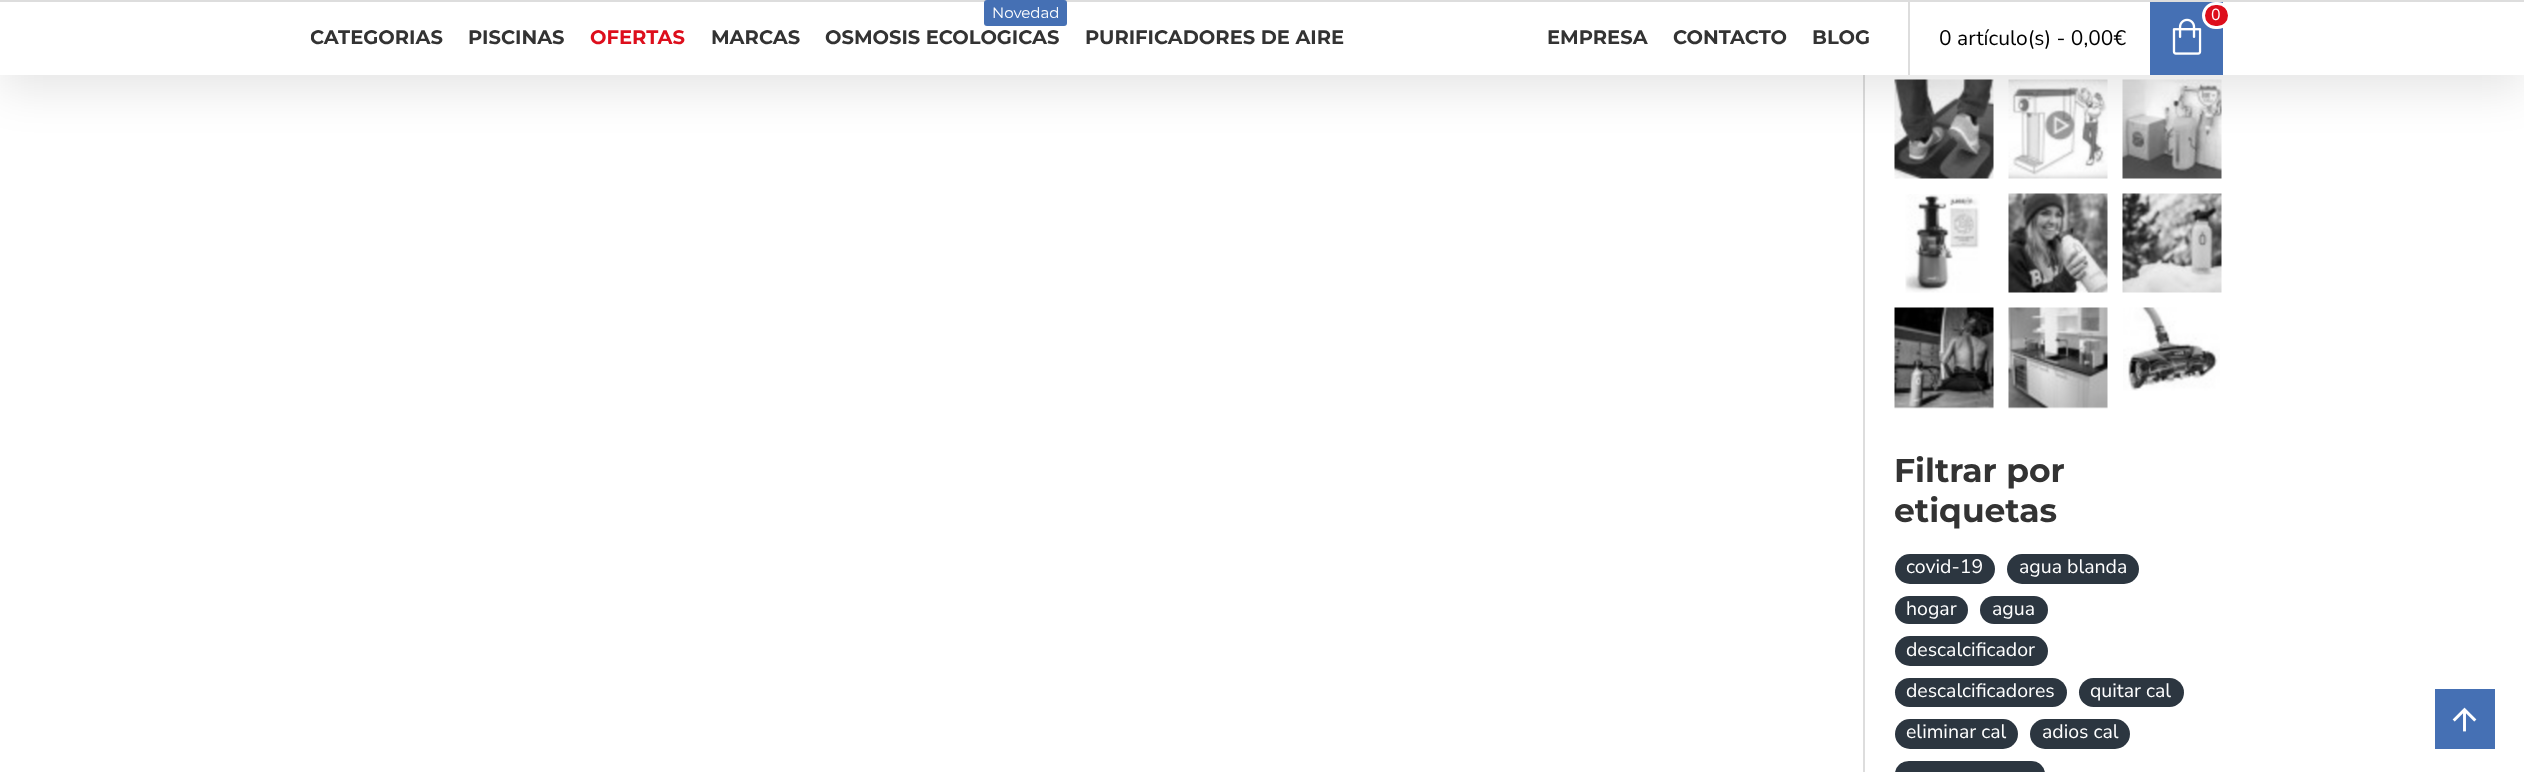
<svg xmlns="http://www.w3.org/2000/svg" xmlns:xlink="http://www.w3.org/1999/xlink" width="2524" height="772" viewBox="0 0 2524 772">
<style>
.cls-1{font:bold 19.5px Montserrat;fill:#333333}
.cls-2{font:bold 19.5px Montserrat;fill:#dd0e1c}
.cls-3{font:15px Montserrat;fill:#ffffff}
.cls-4{font:16px Nunito Sans;fill:#ffffff}
.cls-5{font:21px Nunito Sans;fill:#000000}
.cls-6{font:bold 33px Montserrat;fill:#333333}
.cls-7{font:19.5px Nunito Sans;fill:#ffffff}
</style>
<defs>
<clipPath id="clip1"><rect x="311" y="23" width="132" height="30"/></clipPath>
</defs>
<rect width="100%" height="100%" fill="#ffffff"/>
<rect fill="#dddddd" x="1863" y="75" width="2" height="697"/>
<image xlink:href="image1.png" x="1894" y="79" width="100" height="100"/>
<image xlink:href="image2.png" x="2008" y="79" width="100" height="100"/>
<image xlink:href="image3.png" x="2122" y="79" width="100" height="100"/>
<rect fill="#000000" fill-opacity="0.1" filter="blur(22.5px)" x="0" y="15" width="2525" height="75"/>
<rect fill="#ffffff" x="0" y="2" width="2524" height="73"/>
<rect fill="#dddddd" x="0" y="0" width="2524" height="2"/>
<rect fill="#4570b4" x="984" y="0" width="83" height="26" rx="3"/>
<rect fill="#dddddd" x="1908" y="0" width="2" height="75"/>
<rect fill="#4570b4" x="2150" y="2" width="73" height="73"/>
<image xlink:href="image0.png" x="2172" y="18" width="30" height="37"/>
<rect fill="#dd0e1c" stroke="#ffffff" stroke-width="3" x="2203.5" y="3.5" width="26" height="24" rx="12"/>
<image xlink:href="image4.png" x="1905" y="194" width="75" height="99"/>
<image xlink:href="image5.png" x="2008" y="193" width="100" height="100"/>
<image xlink:href="image6.png" x="2122" y="193" width="100" height="100"/>
<image xlink:href="image7.png" x="1894" y="307" width="100" height="102"/>
<image xlink:href="image8.png" x="2008" y="307" width="100" height="102"/>
<image xlink:href="image9.png" x="2123" y="307" width="97" height="84"/>
<rect fill="#2c3640" x="1895" y="554" width="100" height="30" rx="15"/>
<rect fill="#2c3640" x="2007" y="554" width="132" height="30" rx="15"/>
<rect fill="#2c3640" x="1895" y="596" width="73" height="28" rx="14"/>
<rect fill="#2c3640" x="1980" y="596" width="68" height="28" rx="14"/>
<rect fill="#2c3640" x="1895" y="636" width="153" height="30" rx="15"/>
<rect fill="#2c3640" x="1895" y="678" width="172" height="29" rx="14.5"/>
<rect fill="#2c3640" x="2079" y="678" width="105" height="29" rx="14.5"/>
<rect fill="#2c3640" x="1895" y="719" width="123" height="30" rx="15"/>
<rect fill="#2c3640" x="2030" y="719" width="100" height="30" rx="15"/>
<rect fill="#2c3640" x="1895" y="761" width="150" height="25" rx="14"/>
<rect fill="#4570b4" x="2435" y="689" width="60" height="60"/>
<image xlink:href="image10.png" x="2452" y="707" width="25" height="25"/>
<g clip-path="url(#clip1)">
<text class="cls-1" x="310" y="44">CATEGORIAS</text>
</g>
<text class="cls-1" x="468" y="44">PISCINAS</text>
<text class="cls-2" x="590" y="44">OFERTAS</text>
<text class="cls-1" x="711" y="44">MARCAS</text>
<text class="cls-3" x="992" y="18">Novedad</text>
<text class="cls-1" x="825" y="44">OSMOSIS ECOLOGICAS</text>
<text class="cls-1" x="1085" y="44">PURIFICADORES DE AIRE</text>
<text class="cls-1" x="1547" y="44">EMPRESA</text>
<text class="cls-1" x="1673" y="44">CONTACTO</text>
<text class="cls-1" x="1812" y="44">BLOG</text>
<text class="cls-4" x="2211" y="20">0</text>
<text class="cls-5" x="1939" y="45">0 artículo(s) - 0,00€</text>
<text class="cls-6"><tspan x="1894" y="482">Filtrar por</tspan><tspan x="1894" y="522">etiquetas</tspan></text>
<text class="cls-7" x="1906" y="573">covid-19</text>
<text class="cls-7" x="2019" y="573">agua blanda</text>
<text class="cls-7" x="1906" y="615">hogar</text>
<text class="cls-7" x="1992" y="615">agua</text>
<text class="cls-7" x="1906" y="656">descalcificador</text>
<text class="cls-7" x="1906" y="697">descalcificadores</text>
<text class="cls-7" x="2090" y="697">quitar cal</text>
<text class="cls-7" x="1906" y="738">eliminar cal</text>
<text class="cls-7" x="2042" y="738">adios cal</text>
</svg>
